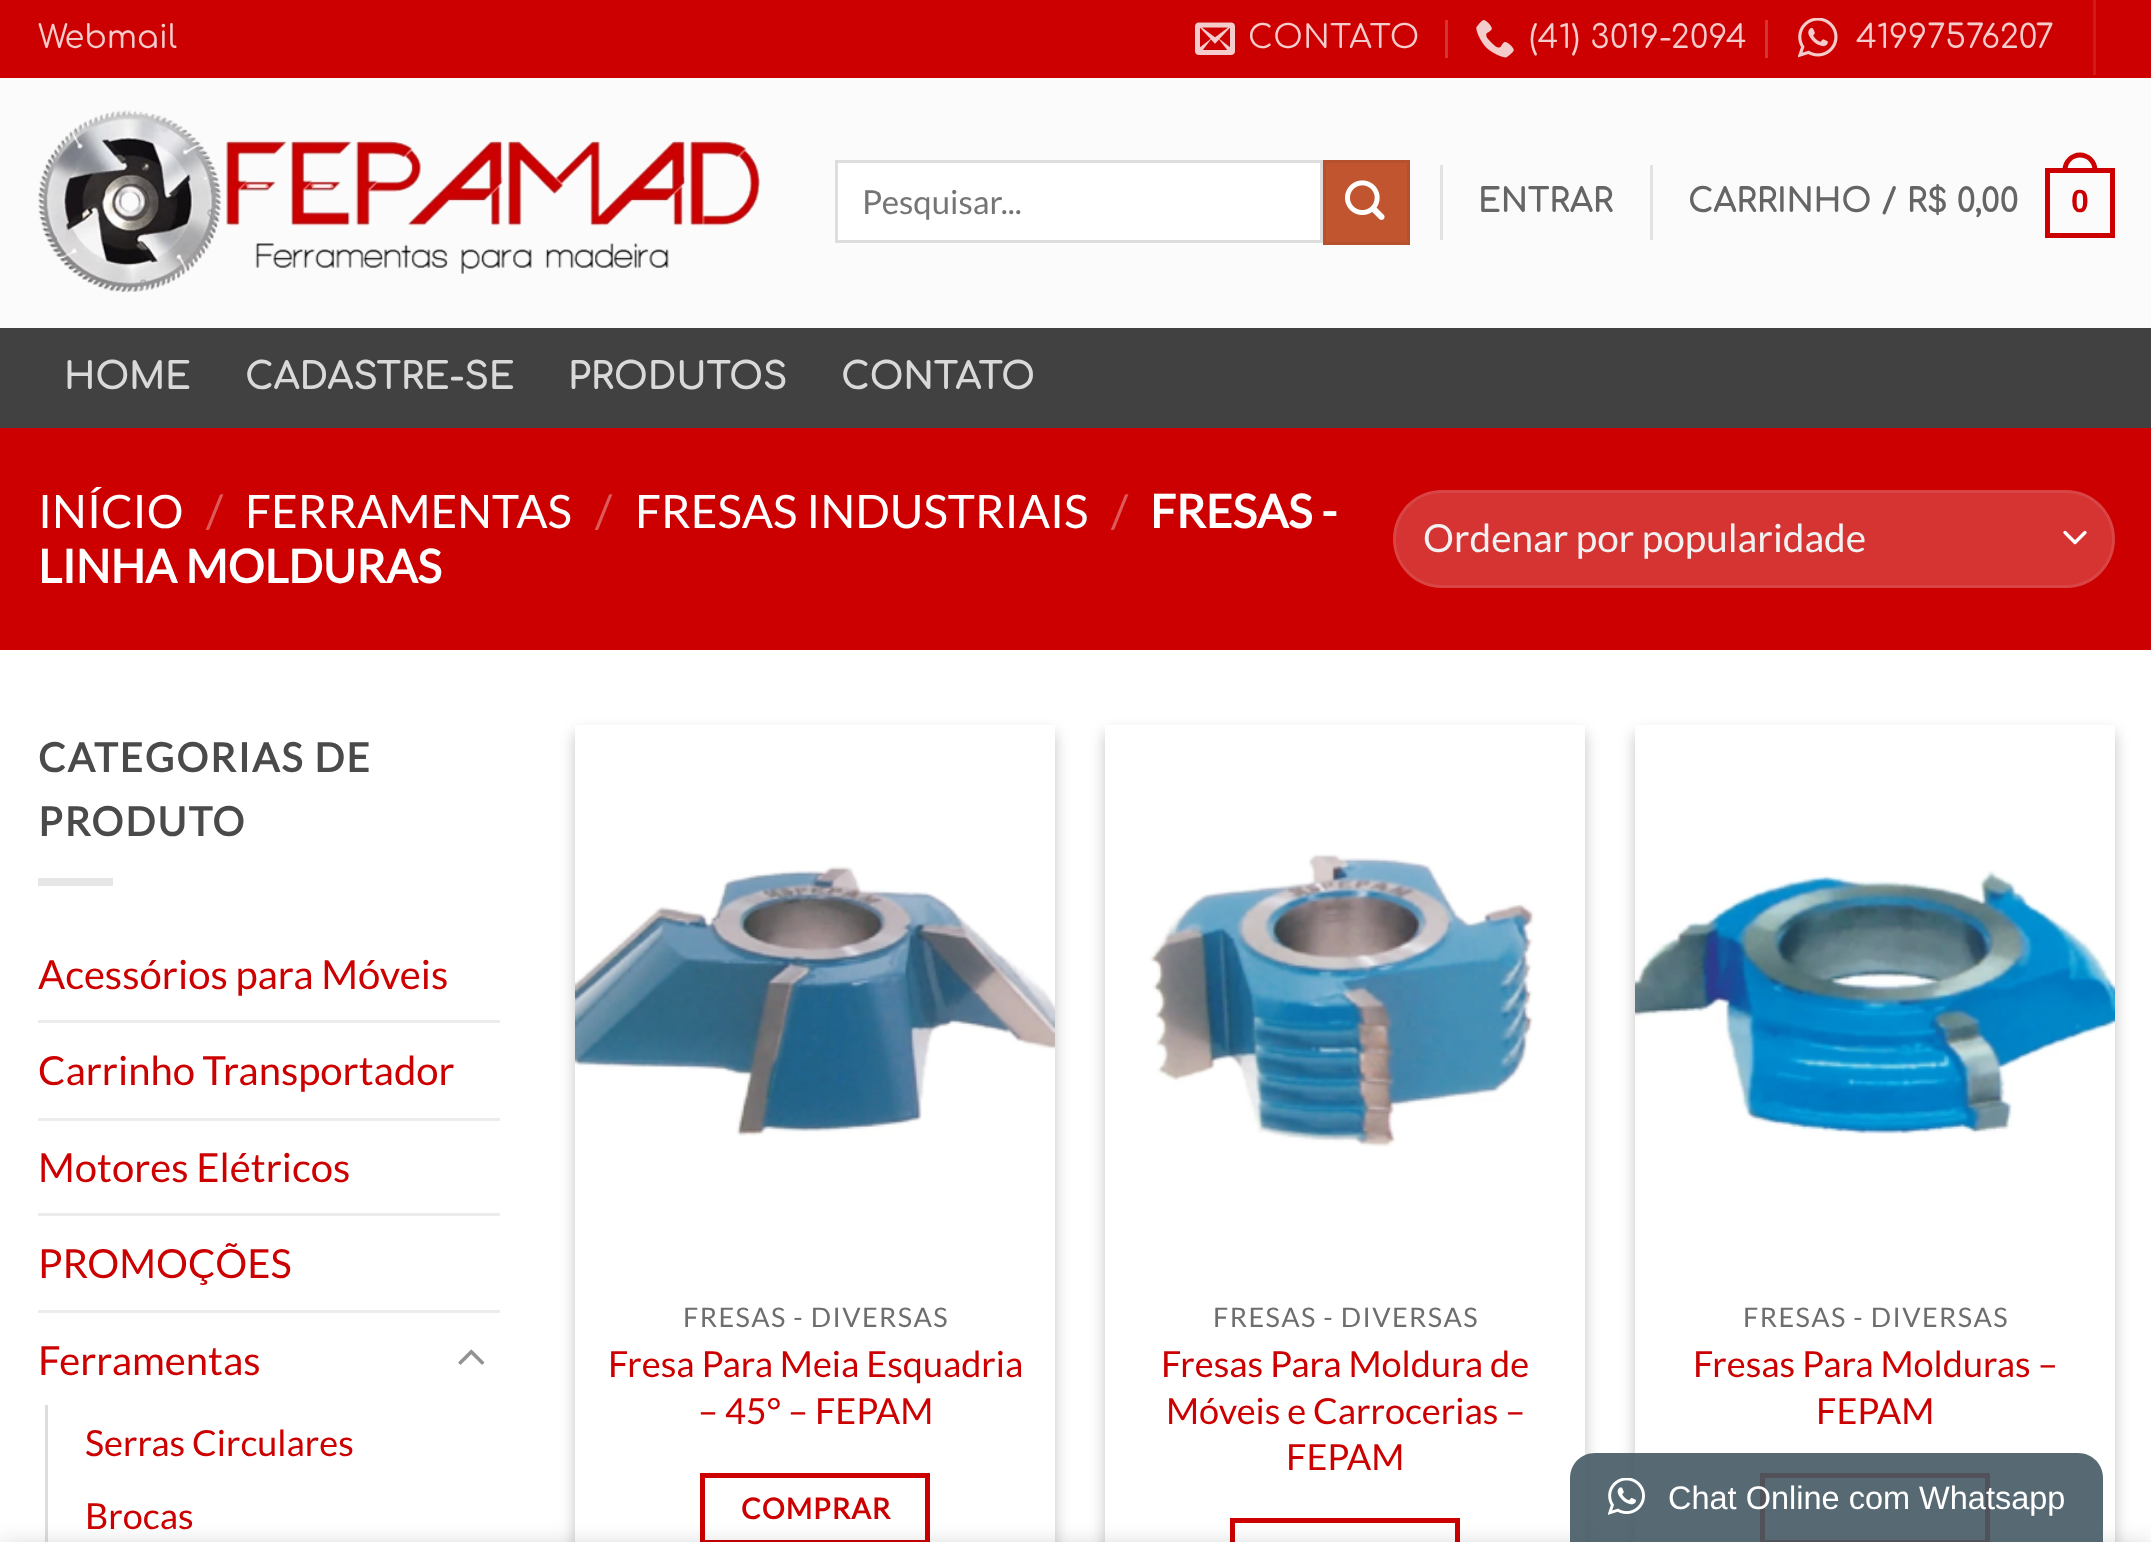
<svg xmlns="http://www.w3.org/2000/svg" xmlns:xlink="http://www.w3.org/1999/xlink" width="2151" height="1542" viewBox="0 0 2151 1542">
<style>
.cls-1{font:32px Comfortaa;fill:#f5cccc}
.cls-2{font:32px Comfortaa;letter-spacing:0.6px;fill:#f5cccc}
.cls-3{font:32.5px Comfortaa;fill:#f5cccc}
.cls-4{font:33px Lato;fill:#757575}
.cls-5{font:bold 32px Comfortaa;letter-spacing:0.6px;fill:#656565}
.cls-6{font:bold 32px Liberation Sans;letter-spacing:0.6px;fill:#cc0000}
.cls-7{font:bold 36px Comfortaa;letter-spacing:0.75px;fill:#d9d9d9}
.cls-8{font:46px Lato;fill:#ffffff}
.cls-9{font:46px Lato;fill:#de5959}
.cls-10{font:bold 46px Lato;fill:#ffffff}
.cls-11{font:38.75px Lato;fill:#f1f1f1}
.cls-12{font:bold 40px Lato;letter-spacing:2px;fill:#4a4a4a}
.cls-13{font:40px Lato;fill:#cc0000}
.cls-14{font:36px Lato;fill:#cc0000}
.cls-15{font:27px Lato;letter-spacing:1.4px;fill:#6e6e6e}
.cls-16{font:bold 28.75px Lato;letter-spacing:1px;fill:#cc0000}
.cls-17{font:32.5px Liberation Sans;fill:#ffffff}
</style>
<defs>
<clipPath id="clip1"><path d="M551 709H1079V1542H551ZM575 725H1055V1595H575Z" clip-rule="evenodd"/></clipPath>
<clipPath id="clip2"><path d="M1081 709H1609V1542H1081ZM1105 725H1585V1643H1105Z" clip-rule="evenodd"/></clipPath>
<clipPath id="clip3"><path d="M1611 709H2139V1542H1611ZM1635 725H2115V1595H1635Z" clip-rule="evenodd"/></clipPath>
</defs>
<rect width="100%" height="100%" fill="#ffffff"/>
<rect fill="#cc0000" x="0" y="0" width="2151" height="78"/>
<image xlink:href="image0.png" x="1195" y="22" width="40" height="33"/>
<rect fill="#d63333" x="1445" y="20" width="3" height="38"/>
<image xlink:href="image1.png" x="1476" y="20" width="38" height="38"/>
<rect fill="#d63333" x="1765" y="20" width="3" height="38"/>
<image xlink:href="image2.png" x="1798" y="18" width="40" height="40"/>
<rect fill="#d11a1a" x="2093" y="0" width="3" height="75"/>
<rect fill="#fbfbfb" x="0" y="78" width="2151" height="250"/>
<image xlink:href="image3.png" x="38" y="110" width="722" height="183"/>
<rect fill="#ffffff" stroke="#dddddd" stroke-width="3" x="836.5" y="161.5" width="485" height="80"/>
<rect fill="#c05530" stroke="#b6512e" stroke-width="3" x="1324.5" y="161.5" width="84" height="82"/>
<image xlink:href="image4.png" x="1345" y="180" width="40" height="40"/>
<rect fill="#e2e2e2" x="1440" y="165" width="3" height="75"/>
<rect fill="#e2e2e2" x="1650" y="165" width="3" height="75"/>
<rect fill="none" stroke="#cc0000" stroke-width="5" x="2047.5" y="170.5" width="65" height="65"/>
<path fill="#cc0000" fill-rule="evenodd" d="M2080 152.5C2089.5 152.5 2097.5 160.5 2097.5 170V172.5H2062.5V170C2062.5 160.5 2070.5 152.5 2080 152.5ZM2080 157.5C2087 157.5 2092.5 163 2092.5 170V172.5H2067.5V170C2067.5 163 2073 157.5 2080 157.5Z"/>
<rect fill="#414141" x="0" y="328" width="2151" height="100"/>
<rect fill="#cc0000" x="0" y="428" width="2151" height="222"/>
<rect fill="#d63333" x="1393" y="490" width="722" height="98" rx="49"/>
<path fill="none" stroke="#ffffff" stroke-width="3.3" stroke-linecap="round" stroke-linejoin="round" d="M2065 532.5L2075 542.5L2085 532.5"/>
<rect fill="none" stroke="#ffffff" stroke-opacity="0.09" stroke-width="3" x="1394.5" y="491.5" width="719" height="95" rx="47.5"/>
<rect fill="#e6e6e6" x="38" y="878" width="75" height="8"/>
<rect fill="#ececec" x="38" y="1020" width="462" height="3"/>
<rect fill="#ececec" x="38" y="1118" width="462" height="3"/>
<rect fill="#ececec" x="38" y="1213" width="462" height="3"/>
<rect fill="#ececec" x="38" y="1310" width="462" height="3"/>
<image xlink:href="image5.png" x="458" y="1349" width="27" height="16"/>
<rect fill="#dddddd" x="45" y="1405" width="3" height="137"/>
<g clip-path="url(#clip1)">
<rect fill="#000000" fill-opacity="0.23" filter="blur(7.5px)" x="575" y="733" width="480" height="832"/>
</g>
<image xlink:href="image6.png" x="575" y="866" width="480" height="270"/>
<rect fill="none" stroke="#cc0000" stroke-width="5" x="702.5" y="1475.5" width="225" height="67"/>
<g clip-path="url(#clip2)">
<rect fill="#000000" fill-opacity="0.23" filter="blur(7.5px)" x="1105" y="733" width="480" height="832"/>
</g>
<image xlink:href="image7.png" x="1149" y="854" width="385" height="293"/>
<rect fill="none" stroke="#cc0000" stroke-width="5" x="1232.5" y="1520.5" width="225" height="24"/>
<g clip-path="url(#clip3)">
<rect fill="#000000" fill-opacity="0.23" filter="blur(7.5px)" x="1635" y="733" width="480" height="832"/>
</g>
<image xlink:href="image8.png" x="1635" y="870" width="480" height="264"/>
<rect fill="none" stroke="#cc0000" stroke-width="5" x="1762.5" y="1475.5" width="225" height="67"/>
<rect fill="#000000" fill-opacity="0.14" filter="blur(11px)" x="0" y="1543" width="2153" height="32"/>
<path fill="#455a64" fill-opacity="0.9" d="M1595 1453H2078C2092 1453 2103 1464 2103 1478V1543H1570V1478C1570 1464 1581 1453 1595 1453Z"/>
<image xlink:href="image9.png" x="1608" y="1478" width="37" height="37"/>
<text class="cls-1" x="38" y="48">Webmail</text>
<text class="cls-2" x="1248" y="48">CONTATO</text>
<text class="cls-2" x="1529" y="48">(41) 3019-2094</text>
<text class="cls-3" x="1856" y="48">41997576207</text>
<text class="cls-4" x="862" y="214">Pesquisar...</text>
<text class="cls-5" x="1478" y="212">ENTRAR</text>
<text class="cls-5" x="1688" y="212">CARRINHO / R$ 0,00</text>
<text class="cls-6" x="2071" y="212">0</text>
<text class="cls-7" x="64" y="389">HOME</text>
<text class="cls-7" x="245" y="389">CADASTRE-SE</text>
<text class="cls-7" x="568" y="389">PRODUTOS</text>
<text class="cls-7" x="841" y="389">CONTATO</text>
<text class="cls-8" x="38" y="528">INÍCIO</text>
<text class="cls-9" x="206" y="528">/</text>
<text class="cls-8" x="245" y="528">FERRAMENTAS</text>
<text class="cls-9" x="595" y="528">/</text>
<text class="cls-8" x="635" y="528">FRESAS INDUSTRIAIS</text>
<text class="cls-9" x="1111" y="528">/</text>
<text class="cls-10" x="1150" y="528">FRESAS -</text>
<text class="cls-10" x="38" y="583">LINHA MOLDURAS</text>
<text class="cls-11" x="1423" y="552">Ordenar por popularidade</text>
<text class="cls-12"><tspan x="38" y="772">CATEGORIAS DE</tspan><tspan x="38" y="836">PRODUTO</tspan></text>
<text class="cls-13" x="38" y="989">Acessórios para Móveis</text>
<text class="cls-13" x="38" y="1085">Carrinho Transportador</text>
<text class="cls-13" x="38" y="1182">Motores Elétricos</text>
<text class="cls-13" x="38" y="1278">PROMOÇÕES</text>
<text class="cls-13" x="38" y="1375">Ferramentas</text>
<text class="cls-14" x="85" y="1456">Serras Circulares</text>
<text class="cls-14" x="85" y="1529">Brocas</text>
<text class="cls-15" x="683" y="1327">FRESAS - DIVERSAS</text>
<text class="cls-14" x="608" y="1377">Fresa Para Meia Esquadria</text>
<text class="cls-14" x="698" y="1424">– 45° – FEPAM</text>
<text class="cls-16" x="741" y="1519">COMPRAR</text>
<text class="cls-15" x="1213" y="1327">FRESAS - DIVERSAS</text>
<text class="cls-14" x="1161" y="1377">Fresas Para Moldura de</text>
<text class="cls-14" x="1166" y="1424">Móveis e Carrocerias –</text>
<text class="cls-14" x="1286" y="1470">FEPAM</text>
<text class="cls-15" x="1743" y="1327">FRESAS - DIVERSAS</text>
<text class="cls-14" x="1693" y="1377">Fresas Para Molduras –</text>
<text class="cls-14" x="1816" y="1424">FEPAM</text>
<text class="cls-17" x="1668" y="1509">Chat Online com Whatsapp</text>
</svg>
